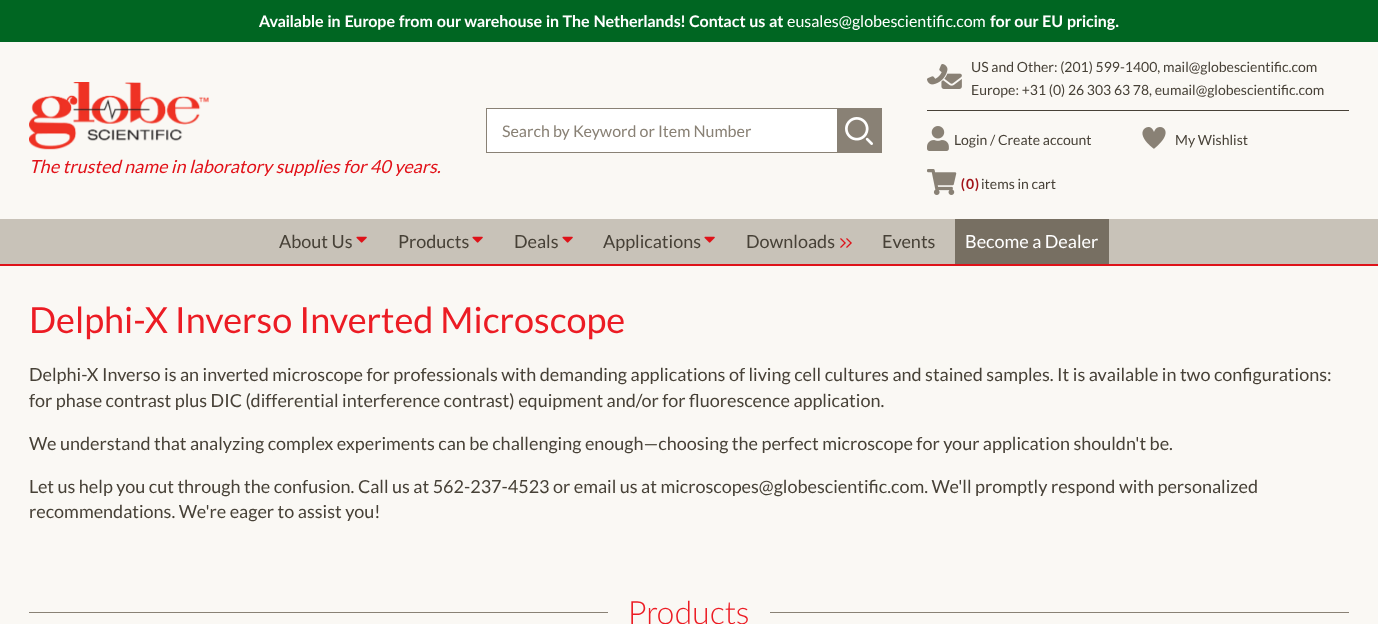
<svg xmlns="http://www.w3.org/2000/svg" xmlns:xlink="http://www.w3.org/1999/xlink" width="1378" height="624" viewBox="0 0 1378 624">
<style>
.cls-1{font:bold 16px Lato;fill:#ffffff}
.cls-2{font:16px Lato;fill:#ffffff}
.cls-3{font:16px Lato;fill:#898175}
.cls-4{font:14px Lato;fill:#474137}
.cls-5{font:bold 14px Lato;fill:#a21419}
.cls-6{font:italic 18px Lato;fill:#e21219}
.cls-7{font:18px Lato;fill:#474137}
.cls-8{font:18px Lato;fill:#ffffff}
.cls-9{font:36px Lato;fill:#ec1c24}
.cls-10{font:300 32px Lato;fill:#ec1c24}
</style>
<rect width="100%" height="100%" fill="#faf8f4"/>
<rect fill="#de1219" x="0" y="264" width="1378" height="2"/>
<rect fill="#006622" x="0" y="0" width="1378" height="42"/>
<rect fill="#ffffff" x="487" y="109" width="350" height="43"/>
<rect fill="none" stroke="#898175" x="486.5" y="108.5" width="395" height="44"/>
<rect fill="#898175" x="837" y="109" width="44" height="43"/>
<image xlink:href="image0.png" x="845" y="117" width="28" height="28"/>
<rect fill="#474137" x="927" y="110" width="422" height="1"/>
<image xlink:href="image1.png" x="927" y="64" width="35" height="25"/>
<image xlink:href="image2.png" x="927" y="126" width="22" height="25"/>
<image xlink:href="image3.png" x="1142" y="127" width="24" height="22"/>
<image xlink:href="image4.png" x="927" y="169" width="30" height="26"/>
<image xlink:href="image5.png" x="29" y="82" width="180" height="68"/>
<rect fill="#c8c2b8" x="0" y="219" width="1378" height="45"/>
<image xlink:href="image6.png" x="356" y="236" width="11" height="7"/>
<image xlink:href="image6.png" x="472" y="236" width="11" height="7"/>
<image xlink:href="image6.png" x="562" y="236" width="11" height="7"/>
<image xlink:href="image6.png" x="704" y="236" width="11" height="7"/>
<image xlink:href="image7.png" x="840" y="238" width="12" height="10"/>
<rect fill="#776f62" x="955" y="219" width="154" height="45"/>
<rect fill="#898175" x="29" y="612" width="579" height="1"/>
<rect fill="#898175" x="770" y="612" width="579" height="1"/>
<text class="cls-1" x="259" y="27">Available in Europe from our warehouse in The Netherlands! Contact us at</text>
<text class="cls-2" x="787" y="27">eusales@globescientific.com</text>
<text class="cls-1" x="990" y="27">for our EU pricing.</text>
<text class="cls-3" x="502" y="137">Search by Keyword or Item Number</text>
<text class="cls-4"><tspan x="971" y="72">US and Other: (201) 599-1400, mail@globescientific.com</tspan><tspan x="971" y="95">Europe: +31 (0) 26 303 63 78, eumail@globescientific.com</tspan></text>
<text class="cls-4" x="954" y="145">Login / Create account</text>
<text class="cls-4" x="1175" y="145">My Wishlist</text>
<text class="cls-5" x="961" y="189">(</text>
<text class="cls-5" x="966" y="189">0</text>
<text class="cls-5" x="975" y="189">)</text>
<text class="cls-4" x="981" y="189">items in cart</text>
<text class="cls-6" x="29" y="173">The trusted name in laboratory supplies for 40 years.</text>
<text class="cls-7" x="279" y="248">About Us</text>
<text class="cls-7" x="398" y="248">Products</text>
<text class="cls-7" x="514" y="248">Deals</text>
<text class="cls-7" x="603" y="248">Applications</text>
<text class="cls-7" x="746" y="248">Downloads</text>
<text class="cls-7" x="882" y="248">Events</text>
<text class="cls-8" x="965" y="248">Become a Dealer</text>
<text class="cls-9" x="29" y="333">Delphi-X Inverso Inverted Microscope</text>
<text class="cls-7"><tspan x="29" y="381">Delphi-X Inverso is an inverted microscope for professionals with demanding applications of living cell cultures and stained samples. It is available in two configurations:</tspan><tspan x="29" y="407">for phase contrast plus DIC (differential interference contrast) equipment and/or for fluorescence application.</tspan></text>
<text class="cls-7" x="29" y="450">We understand that analyzing complex experiments can be challenging enough—choosing the perfect microscope for your application shouldn't be.</text>
<text class="cls-7"><tspan x="29" y="493">Let us help you cut through the confusion. Call us at 562-237-4523 or email us at microscopes@globescientific.com. We'll promptly respond with personalized</tspan><tspan x="29" y="518">recommendations. We're eager to assist you!</tspan></text>
<text class="cls-10" x="628" y="624">Products</text>
</svg>
